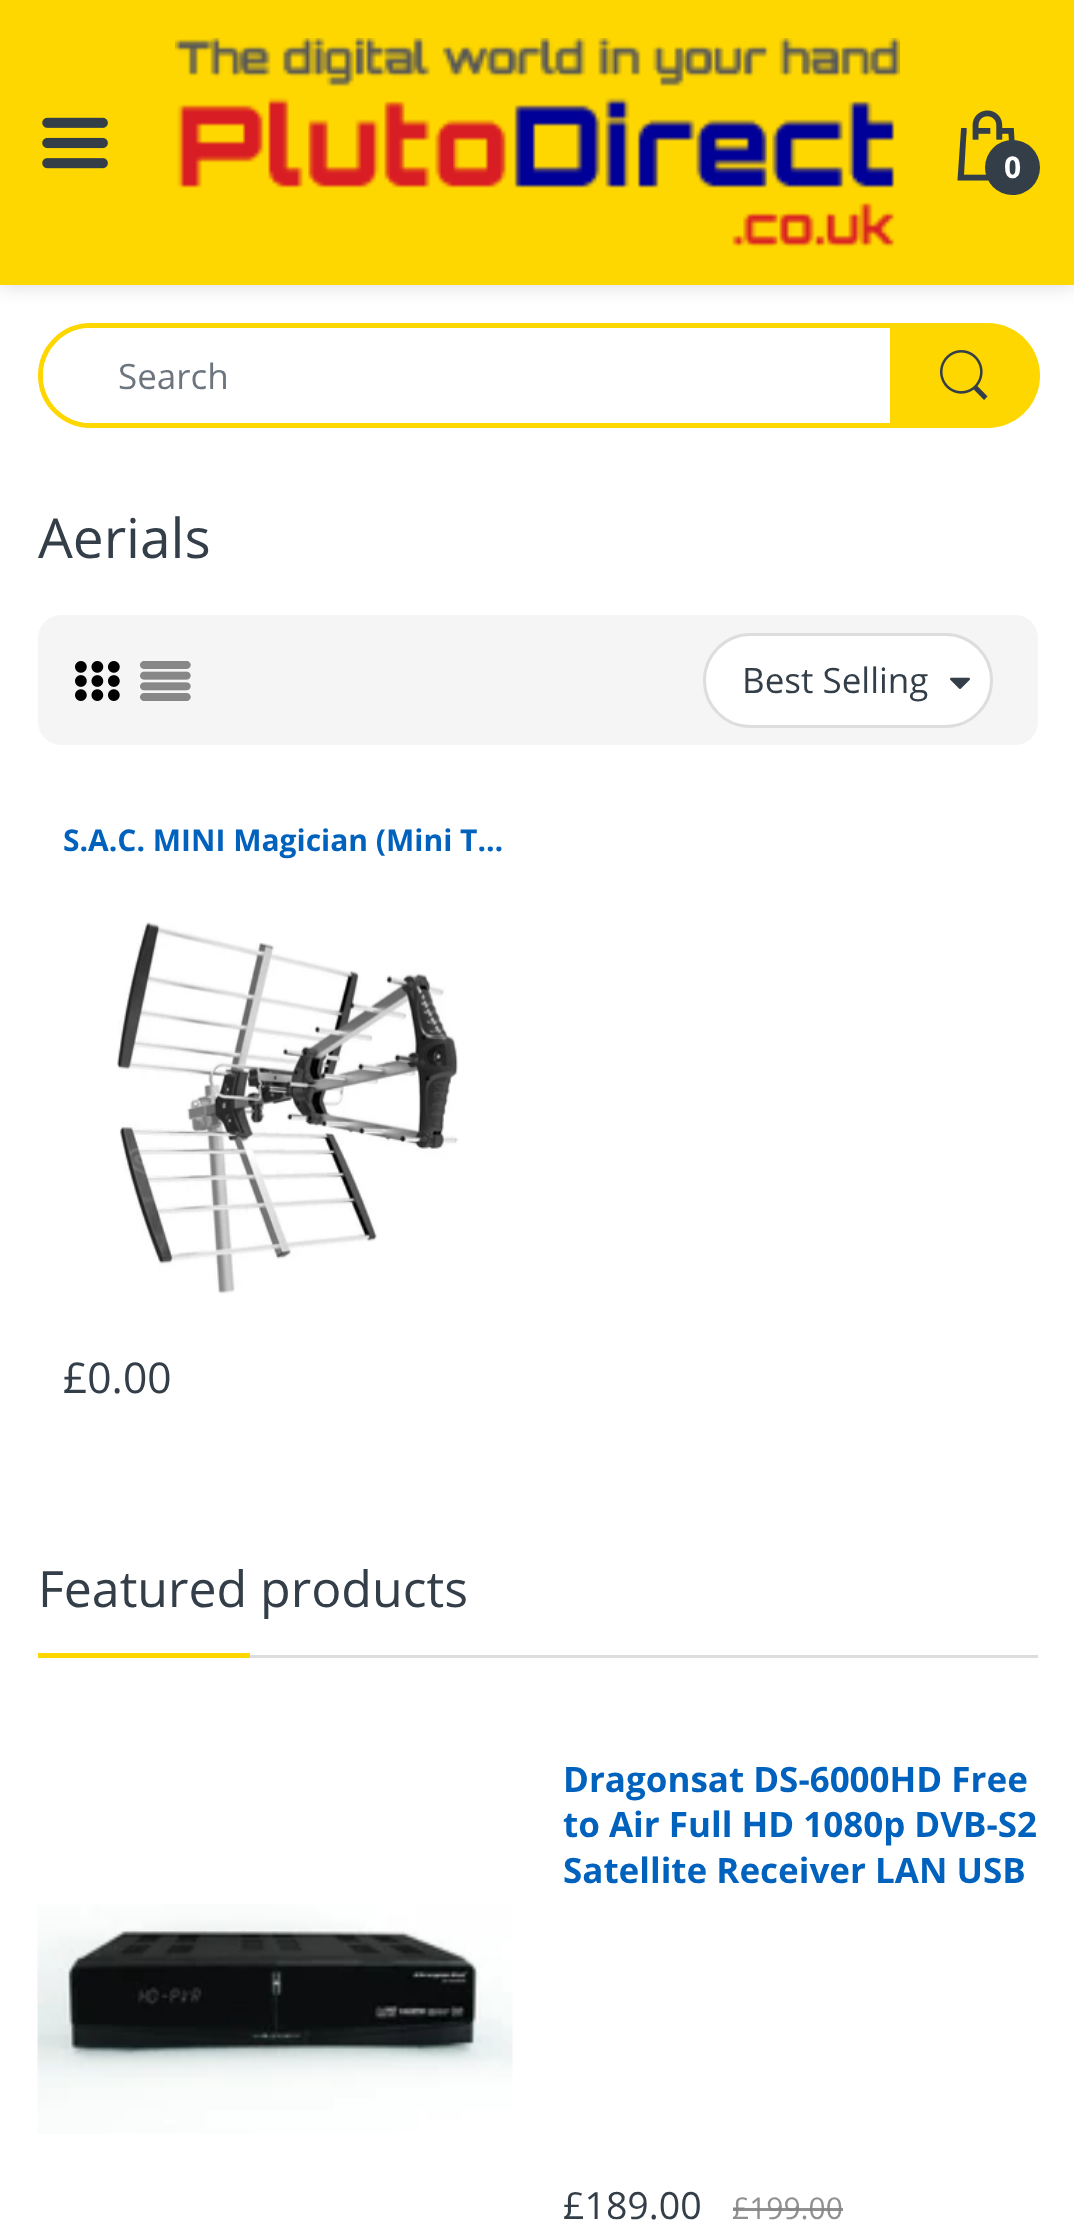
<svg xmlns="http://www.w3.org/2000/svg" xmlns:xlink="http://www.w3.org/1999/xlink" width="1074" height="2233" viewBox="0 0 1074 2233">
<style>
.cls-1{font:bold 30px Open Sans;fill:#ffffff}
.cls-2{font:35px Open Sans;fill:#6c757d}
.cls-3{font:55px Open Sans;fill:#333e48}
.cls-4{font:35px Open Sans;fill:#333e48}
.cls-5{font:bold 30px Open Sans;fill:#0062bd}
.cls-6{font:42.5px Open Sans;fill:#333e48}
.cls-7{font:50px Open Sans;fill:#333e48}
.cls-8{font:bold 35px Open Sans;fill:#0062bd}
.cls-9{font:37.5px Open Sans;fill:#333e48}
.cls-10{font:30px Open Sans;fill:#909090}
</style>
<rect width="100%" height="100%" fill="#ffffff"/>
<rect fill="#c9c9c9" fill-opacity="0.75" filter="blur(10px)" x="0" y="0" width="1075" height="285"/>
<rect fill="#fed700" x="0" y="0" width="1074" height="285"/>
<image xlink:href="image0.png" x="42" y="117" width="66" height="52"/>
<image xlink:href="image1.png" x="175" y="38" width="725" height="210"/>
<image xlink:href="image2.png" x="957" y="110" width="58" height="71"/>
<circle fill="#333e48" cx="1012.5" cy="167.5" r="27.5"/>
<rect fill="none" stroke="#fed700" stroke-width="5" x="40.5" y="325.5" width="995" height="100" rx="50"/>
<rect fill="#ffffff" x="43" y="328" width="990" height="95" rx="47.5"/>
<path fill="#fed700" d="M890 323H987.5C1016.5 323 1040 346.5 1040 375.5C1040 404.5 1016.5 428 987.5 428H890Z"/>
<image xlink:href="image3.png" x="940" y="350" width="48" height="50"/>
<rect fill="#f5f5f5" x="38" y="615" width="1000" height="130" rx="23"/>
<image xlink:href="image4.png" x="75" y="661" width="45" height="40"/>
<image xlink:href="image5.png" x="140" y="661" width="51" height="40"/>
<rect fill="#ffffff" stroke="#dddddd" stroke-width="3" x="704.5" y="634.5" width="287" height="92" rx="46"/>
<image xlink:href="image6.png" x="950" y="677" width="20" height="12"/>
<image xlink:href="image7.png" x="117" y="922" width="342" height="372"/>
<rect fill="#dddddd" x="250" y="1655" width="788" height="3"/>
<rect fill="#fed700" x="38" y="1653" width="212" height="5"/>
<image xlink:href="image8.png" x="37" y="1904" width="476" height="230"/>
<text class="cls-1" x="1004" y="178">0</text>
<text class="cls-2" x="118" y="389">Search</text>
<text class="cls-3" x="38" y="558">Aerials</text>
<text class="cls-4" x="742" y="693">Best Selling</text>
<text class="cls-5" x="63" y="851">S.A.C. MINI Magician (Mini T…</text>
<text class="cls-6" x="63" y="1393">£0.00</text>
<text class="cls-7" x="38" y="1607">Featured products</text>
<text class="cls-8"><tspan x="563" y="1792">Dragonsat DS-6000HD Free</tspan><tspan x="563" y="1837">to Air Full HD 1080p DVB-S2</tspan><tspan x="563" y="1883">Satellite Receiver LAN USB</tspan></text>
<text class="cls-9" x="563" y="2219">£189.00</text>
<text class="cls-10" x="732" y="2219">£199.00</text>
<rect fill="#848484" fill-opacity="0.9" x="733" y="2208" width="110" height="3"/>
</svg>
